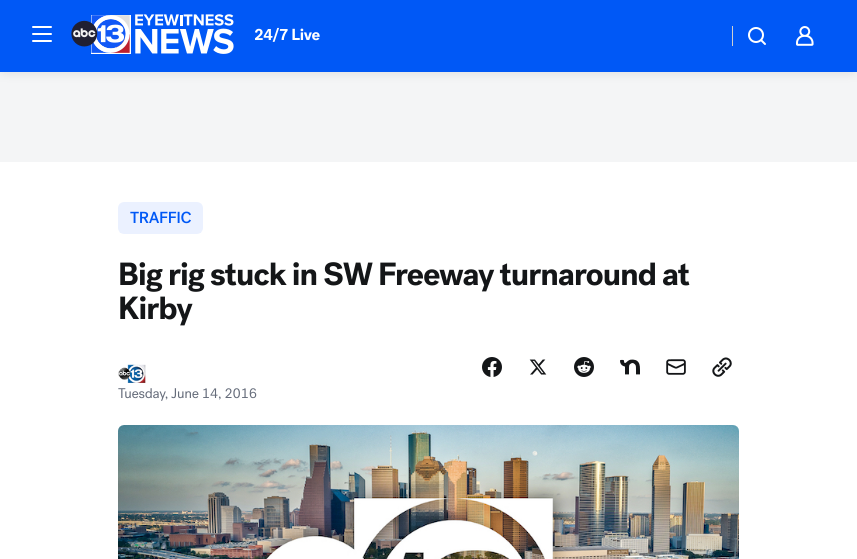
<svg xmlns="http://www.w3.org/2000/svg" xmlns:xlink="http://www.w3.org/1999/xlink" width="857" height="559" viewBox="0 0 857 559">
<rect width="100%" height="100%" fill="#ffffff"/>
<rect fill="#f4f5f6" x="0" y="72" width="857" height="90"/>
<rect fill="#000000" fill-opacity="0.08" filter="blur(5px)" x="0" y="2" width="857" height="72"/>
<rect fill="#0058f6" x="0" y="0" width="857" height="72"/>
<rect fill="#ffffff" x="32" y="33" width="20" height="2" rx="1"/>
<rect fill="#ffffff" x="32" y="26" width="20" height="2" rx="1"/>
<rect fill="#ffffff" x="32" y="40" width="20" height="2" rx="1"/>
<image xlink:href="image0.png" x="71" y="14" width="163" height="40"/>
<image xlink:href="image1.png" x="254" y="27" width="66" height="15"/>
<rect fill="#cecfcf" x="732" y="26" width="1" height="20"/>
<image xlink:href="image2.png" x="748" y="27" width="18" height="18"/>
<image xlink:href="image3.png" x="796" y="26" width="18" height="20"/>
<rect fill="#ebf1ff" x="118" y="202" width="85" height="32" rx="6"/>
<image xlink:href="image4.png" x="130" y="211" width="61" height="13"/>
<image xlink:href="image5.png" x="120" y="262" width="570" height="30"/>
<image xlink:href="image6.png" x="120" y="296" width="73" height="30"/>
<image xlink:href="image7.png" x="118" y="364" width="28" height="19"/>
<image xlink:href="image8.png" x="118" y="388" width="139" height="13"/>
<image xlink:href="image9.png" x="482" y="357" width="20" height="20"/>
<image xlink:href="image10.png" x="529" y="359" width="18" height="16"/>
<image xlink:href="image11.png" x="574" y="357" width="20" height="20"/>
<image xlink:href="image12.png" x="620" y="359" width="20" height="16"/>
<image xlink:href="image13.png" x="666" y="359" width="20" height="16"/>
<image xlink:href="image14.png" x="712" y="357" width="20" height="20"/>
<image xlink:href="image15.png" x="118" y="425" width="621" height="134"/>
</svg>
